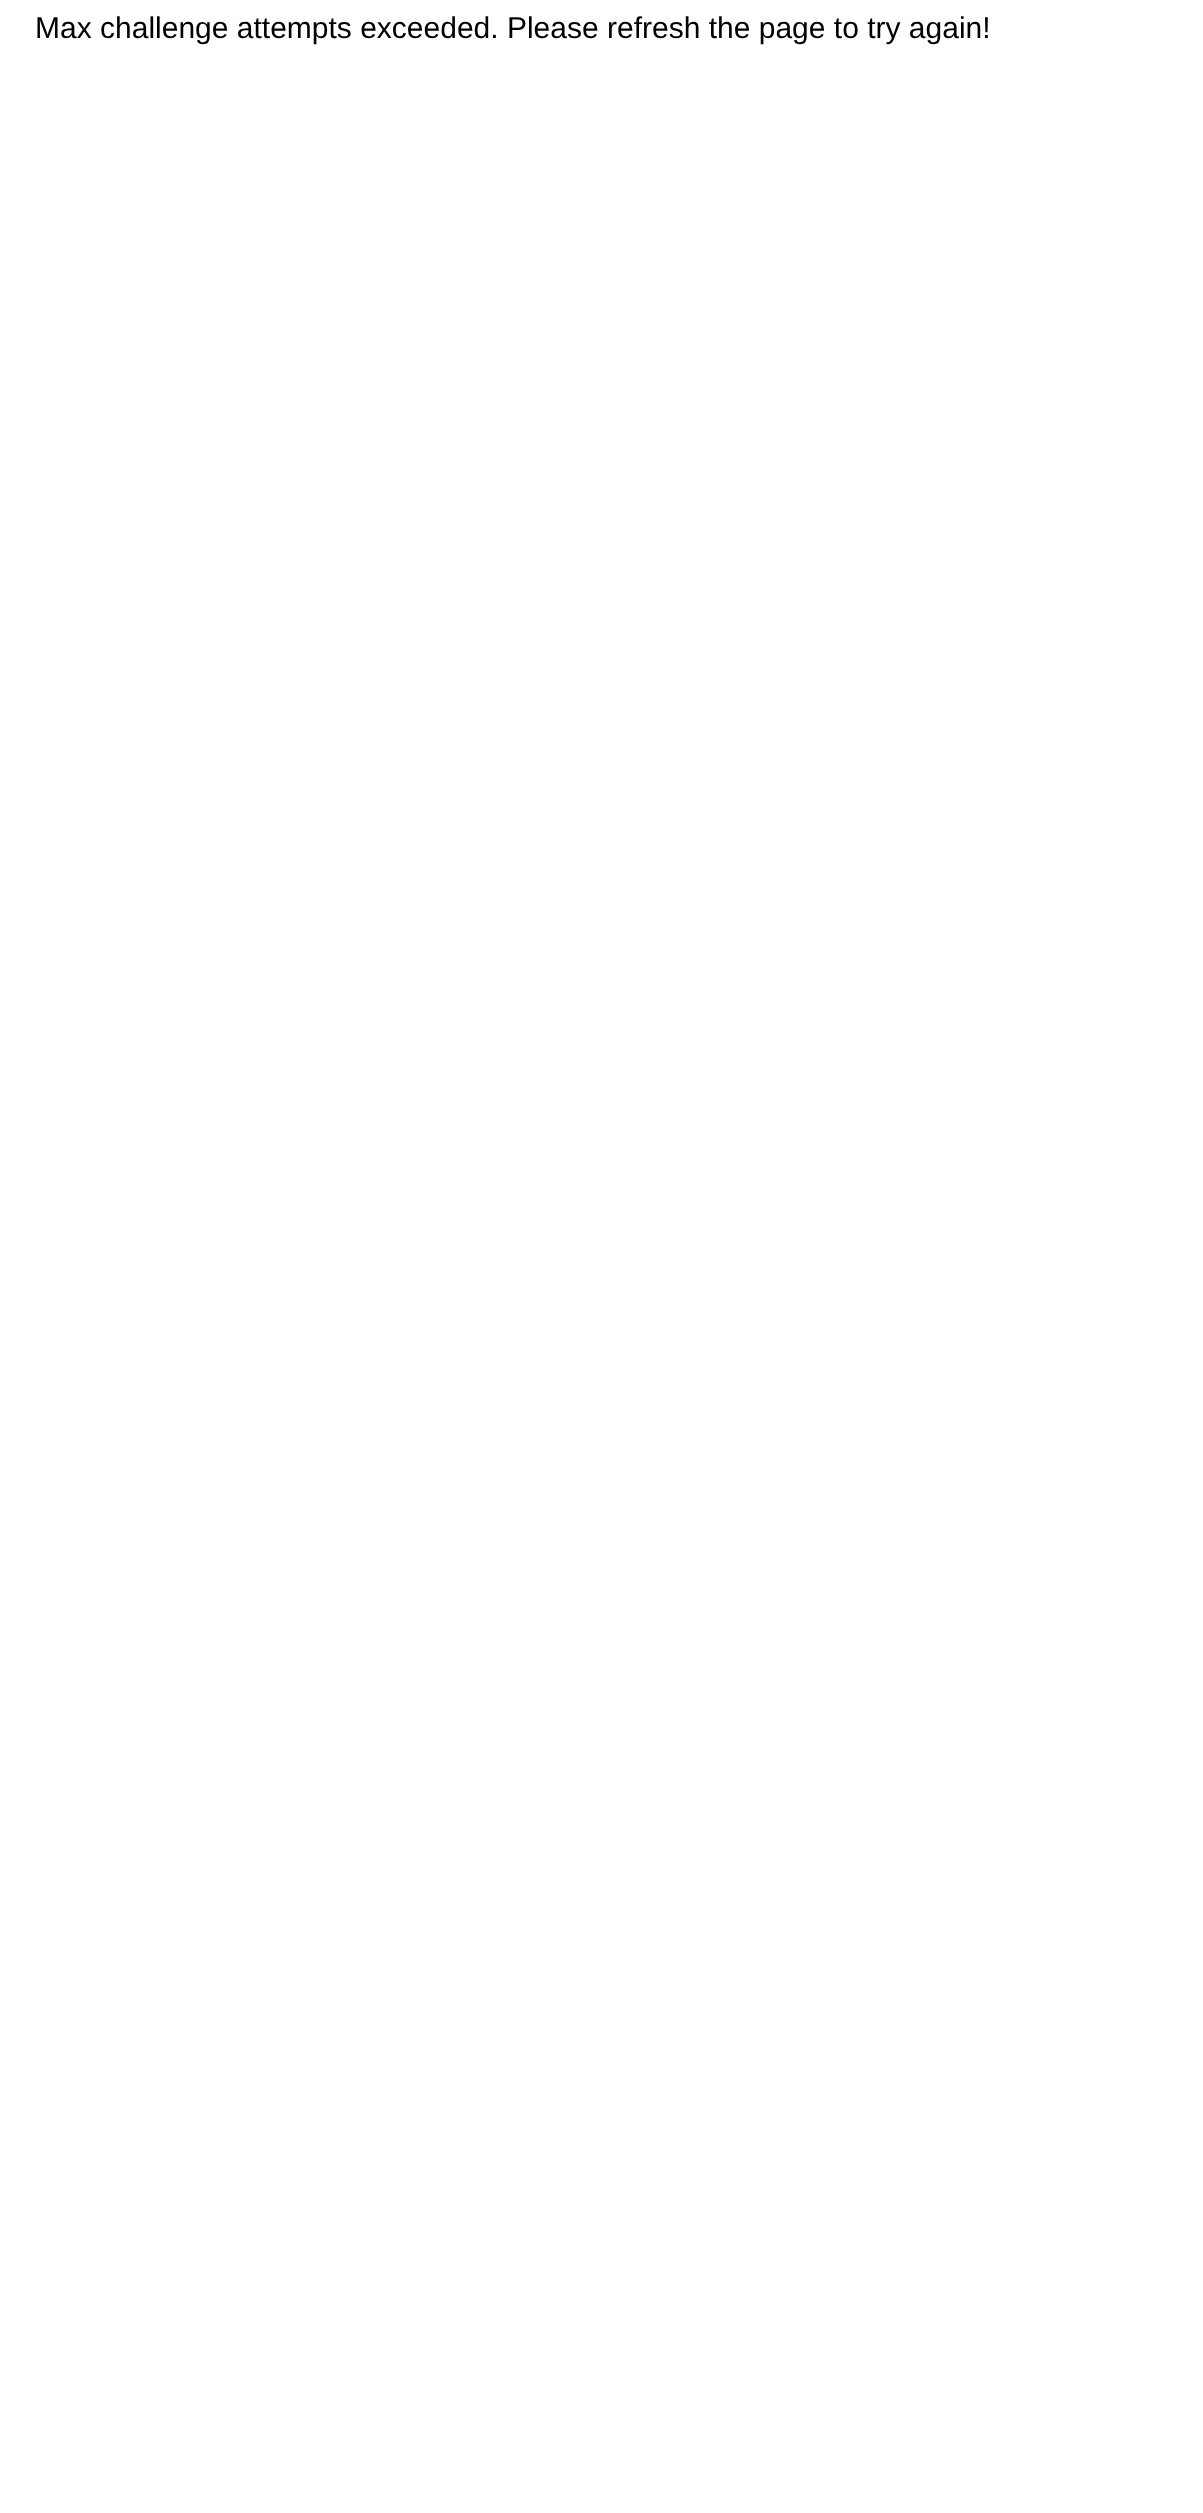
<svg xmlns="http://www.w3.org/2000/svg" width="1203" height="2513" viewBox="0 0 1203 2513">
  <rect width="100%" height="100%" fill="#ffffff"/>
  <text x="35" y="38" font-family="Liberation Sans" font-size="30" fill="#000000">Max challenge attempts exceeded. Please refresh the page to try again!</text>
</svg>
